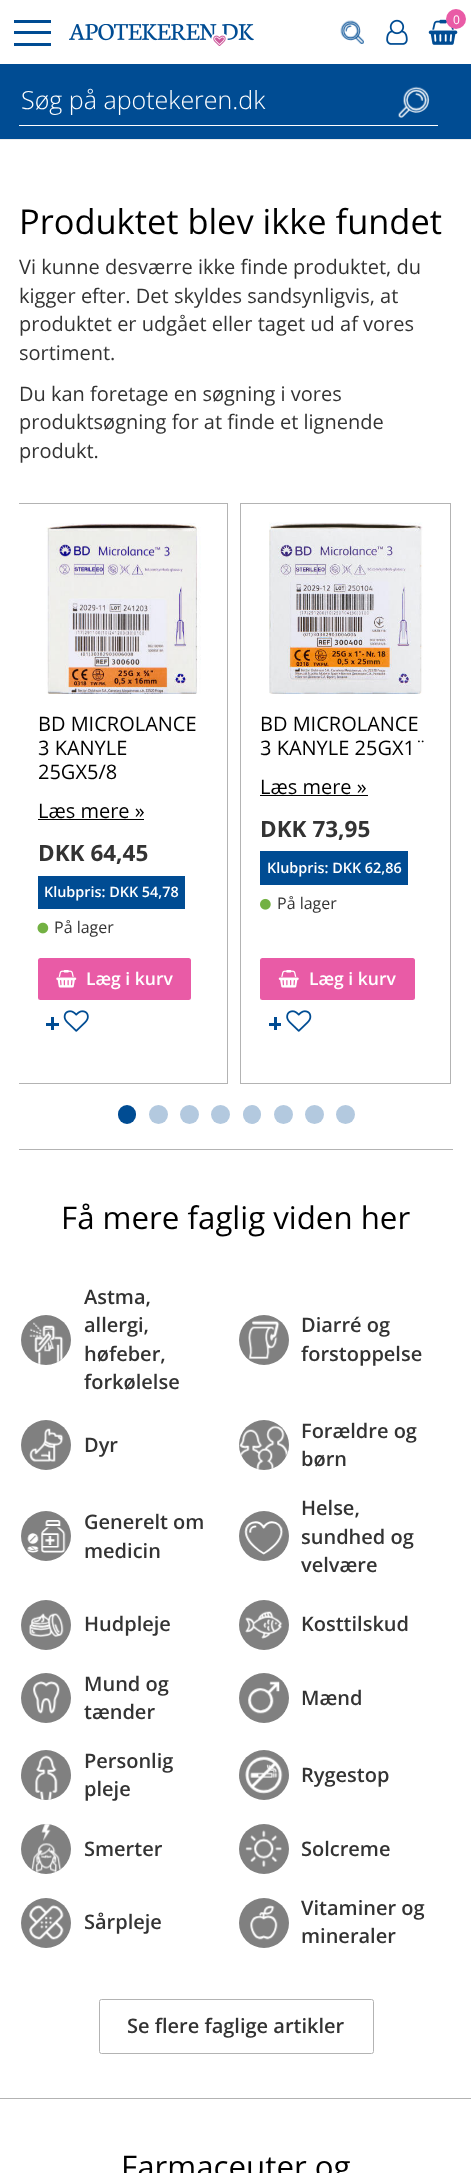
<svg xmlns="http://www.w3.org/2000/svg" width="471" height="2173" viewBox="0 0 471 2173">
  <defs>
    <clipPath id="clip1"><rect x="19" y="503" width="434" height="600"/></clipPath>
  </defs>
  <rect width="100%" height="100%" fill="#ffffff"/>
  <rect x="0" y="139" width="471" height="1" fill="#ededed"/>
  <rect x="14" y="20" width="37" height="3" fill="#004c93"/>
  <rect x="14" y="31" width="37" height="3" fill="#004c93"/>
  <rect x="14" y="43" width="37" height="3" fill="#004c93"/>
  <image x="69" y="24" width="185" height="22" href="img1.png"/>
  <image x="340" y="20" width="24" height="24" href="img2.png"/>
  <image x="386" y="19" width="22" height="26" href="img3.png"/>
  <image x="428" y="19" width="30" height="26" href="img4.png"/>
  <circle cx="456" cy="19" r="10" fill="#e95ba6"/>
  <text x="453" y="24" font-family="Open Sans" font-size="12" fill="#ffffff">0</text>
  <rect x="0" y="64" width="471" height="75" fill="#004c93"/>
  <rect x="19" y="125" width="419" height="1" fill="#ffffff"/>
  <text x="21" y="109" font-family="Open Sans" font-size="25" font-weight="300" fill="#ffffff">Søg på apotekeren.dk</text>
  <image x="398" y="86" width="32" height="32" href="img5.png"/>
  <text x="19" y="234" font-family="Open Sans" font-size="34.4" fill="#000000">Produktet blev ikke fundet</text>
  <text x="19" y="274" font-family="Open Sans" font-size="20" fill="#333333">Vi kunne desværre ikke finde produktet, du</text>
  <text x="19" y="303" font-family="Open Sans" font-size="20" fill="#333333">kigger efter. Det skyldes sandsynligvis, at</text>
  <text x="19" y="331" font-family="Open Sans" font-size="20" fill="#333333">produktet er udgået eller taget ud af vores</text>
  <text x="19" y="360" font-family="Open Sans" font-size="20" fill="#333333">sortiment.</text>
  <text x="19" y="401" font-family="Open Sans" font-size="20" fill="#333333">Du kan foretage en søgning i vores</text>
  <text x="19" y="429" font-family="Open Sans" font-size="20" fill="#333333">produktsøgning for at finde et lignende</text>
  <text x="19" y="458" font-family="Open Sans" font-size="20" fill="#333333">produkt.</text>
  <g clip-path="url(#clip1)">
    <rect x="18.5" y="503.5" width="209" height="580" fill="none" stroke="#b3b3b3"/>
  </g>
  <image x="46" y="523" width="155" height="171" href="img6.png"/>
  <text x="38" y="731" font-family="Open Sans" font-size="20" fill="#000000">BD MICROLANCE</text>
  <text x="38" y="755" font-family="Open Sans" font-size="20" fill="#000000">3 KANYLE</text>
  <text x="38" y="779" font-family="Open Sans" font-size="20" fill="#000000">25GX5/8</text>
  <text x="38" y="818" font-family="Open Sans" font-size="20" fill="#000000">Læs mere »</text>
  <rect x="38" y="819" width="106" height="1" fill="#000000"/>
  <text x="38" y="861" font-family="Open Sans" font-size="22.5" font-weight="bold" fill="#333333">DKK 64,45</text>
  <rect x="38" y="876" width="147" height="33" fill="#004c93"/>
  <text x="44" y="897" font-family="Open Sans" font-size="14.4" font-weight="600" fill="#ffffff">Klubpris: DKK 54,78</text>
  <image x="37" y="922" width="12" height="12" href="img7.png"/>
  <text x="54" y="933" font-family="Open Sans" font-size="16" fill="#333333">På lager</text>
  <rect x="38" y="958" width="153" height="42" rx="2.5" fill="#e95ba6"/>
  <image x="56" y="970" width="21" height="18" href="img8.png"/>
  <text x="86" y="985" font-family="Open Sans" font-size="17.5" font-weight="600" fill="#ffffff">Læg i kurv</text>
  <rect x="51" y="1017" width="3" height="13" fill="#004c93"/>
  <rect x="46" y="1023" width="13" height="3" fill="#004c93"/>
  <image x="63" y="1010" width="26" height="22" href="img9.png"/>
  <rect x="240.5" y="503.5" width="210" height="580" fill="none" stroke="#b3b3b3"/>
  <image x="269" y="522" width="154" height="172" href="img10.png"/>
  <text x="260" y="731" font-family="Open Sans" font-size="20" fill="#000000">BD MICROLANCE</text>
  <text x="260" y="755" font-family="Open Sans" font-size="20" fill="#000000">3 KANYLE 25GX1¨</text>
  <text x="260" y="794" font-family="Open Sans" font-size="20" fill="#000000">Læs mere »</text>
  <rect x="260" y="795" width="108" height="1" fill="#000000"/>
  <text x="260" y="837" font-family="Open Sans" font-size="22.5" font-weight="bold" fill="#333333">DKK 73,95</text>
  <rect x="260" y="851" width="148" height="34" fill="#004c93"/>
  <text x="267" y="873" font-family="Open Sans" font-size="14.4" font-weight="600" fill="#ffffff">Klubpris: DKK 62,86</text>
  <image x="260" y="898" width="11" height="12" href="img11.png"/>
  <text x="277" y="909" font-family="Open Sans" font-size="16" fill="#333333">På lager</text>
  <rect x="260" y="958" width="155" height="42" rx="2.5" fill="#e95ba6"/>
  <image x="278" y="970" width="21" height="18" href="img12.png"/>
  <text x="309" y="985" font-family="Open Sans" font-size="17.5" font-weight="600" fill="#ffffff">Læg i kurv</text>
  <rect x="274" y="1017" width="3" height="13" fill="#004c93"/>
  <rect x="269" y="1023" width="12" height="3" fill="#004c93"/>
  <image x="286" y="1010" width="26" height="22" href="img13.png"/>
  <rect x="118" y="1105" width="18" height="19" rx="9" fill="#004c93"/>
  <circle cx="158.5" cy="1114.5" r="9.5" fill="#b3c9df"/>
  <circle cx="189.5" cy="1114.5" r="9.5" fill="#b3c9df"/>
  <circle cx="220.5" cy="1114.5" r="9.5" fill="#b3c9df"/>
  <rect x="243" y="1105" width="18" height="19" rx="9" fill="#b3c9df"/>
  <circle cx="283.5" cy="1114.5" r="9.5" fill="#b3c9df"/>
  <circle cx="314.5" cy="1114.5" r="9.5" fill="#b3c9df"/>
  <circle cx="345.5" cy="1114.5" r="9.5" fill="#b3c9df"/>
  <rect x="19" y="1149" width="434" height="1" fill="#b3b3b3"/>
  <text x="61" y="1229" font-family="Open Sans" font-size="31.25" fill="#000000">Få mere faglig viden her</text>
  <circle cx="46" cy="1340" r="25" fill="#808080"/>
  <image x="29" y="1322" width="35" height="43" href="img14.png"/>
  <text x="84" y="1304" font-family="Open Sans" font-size="20" font-weight="600" fill="#333333">Astma,</text>
  <text x="84" y="1332" font-family="Open Sans" font-size="20" font-weight="600" fill="#333333">allergi,</text>
  <text x="84" y="1361" font-family="Open Sans" font-size="20" font-weight="600" fill="#333333">høfeber,</text>
  <text x="84" y="1389" font-family="Open Sans" font-size="20" font-weight="600" fill="#333333">forkølelse</text>
  <circle cx="264" cy="1340" r="25" fill="#808080"/>
  <image x="248" y="1320" width="32" height="39" href="img15.png"/>
  <text x="301" y="1332" font-family="Open Sans" font-size="20" font-weight="600" fill="#333333">Diarré og</text>
  <text x="301" y="1361" font-family="Open Sans" font-size="20" font-weight="600" fill="#333333">forstoppelse</text>
  <circle cx="46" cy="1445" r="25" fill="#808080"/>
  <image x="29" y="1428" width="35" height="34" href="img16.png"/>
  <text x="84" y="1452" font-family="Open Sans" font-size="20" font-weight="600" fill="#333333">Dyr</text>
  <circle cx="264" cy="1445" r="25" fill="#808080"/>
  <image x="239" y="1425" width="49" height="45" href="img17.png"/>
  <text x="301" y="1438" font-family="Open Sans" font-size="20" font-weight="600" fill="#333333">Forældre og</text>
  <text x="301" y="1466" font-family="Open Sans" font-size="20" font-weight="600" fill="#333333">børn</text>
  <circle cx="46" cy="1536" r="25" fill="#808080"/>
  <image x="27" y="1520" width="39" height="33" href="img18.png"/>
  <text x="84" y="1529" font-family="Open Sans" font-size="20" font-weight="600" fill="#333333">Generelt om</text>
  <text x="84" y="1558" font-family="Open Sans" font-size="20" font-weight="600" fill="#333333">medicin</text>
  <circle cx="264" cy="1536" r="25" fill="#808080"/>
  <image x="244" y="1521" width="40" height="34" href="img19.png"/>
  <text x="301" y="1515" font-family="Open Sans" font-size="20" font-weight="600" fill="#333333">Helse,</text>
  <text x="301" y="1544" font-family="Open Sans" font-size="20" font-weight="600" fill="#333333">sundhed og</text>
  <text x="301" y="1572" font-family="Open Sans" font-size="20" font-weight="600" fill="#333333">velvære</text>
  <circle cx="46" cy="1625" r="25" fill="#808080"/>
  <image x="29" y="1613" width="35" height="24" href="img20.png"/>
  <text x="84" y="1631" font-family="Open Sans" font-size="20" font-weight="600" fill="#333333">Hudpleje</text>
  <circle cx="264" cy="1625" r="25" fill="#808080"/>
  <image x="245" y="1611" width="38" height="28" href="img21.png"/>
  <text x="301" y="1631" font-family="Open Sans" font-size="20" font-weight="600" fill="#333333">Kosttilskud</text>
  <circle cx="46" cy="1698" r="25" fill="#808080"/>
  <image x="33" y="1681" width="27" height="33" href="img22.png"/>
  <text x="84" y="1691" font-family="Open Sans" font-size="20" font-weight="600" fill="#333333">Mund og</text>
  <text x="84" y="1719" font-family="Open Sans" font-size="20" font-weight="600" fill="#333333">tænder</text>
  <circle cx="264" cy="1698" r="25" fill="#808080"/>
  <image x="248" y="1681" width="32" height="33" href="img23.png"/>
  <text x="301" y="1705" font-family="Open Sans" font-size="20" font-weight="600" fill="#333333">Mænd</text>
  <circle cx="46" cy="1775" r="25" fill="#808080"/>
  <image x="35" y="1755" width="23" height="45" href="img24.png"/>
  <text x="84" y="1768" font-family="Open Sans" font-size="20" font-weight="600" fill="#333333">Personlig</text>
  <text x="84" y="1796" font-family="Open Sans" font-size="20" font-weight="600" fill="#333333">pleje</text>
  <circle cx="264" cy="1775" r="25" fill="#808080"/>
  <image x="245" y="1756" width="38" height="38" href="img25.png"/>
  <text x="301" y="1782" font-family="Open Sans" font-size="20" font-weight="600" fill="#333333">Rygestop</text>
  <circle cx="46" cy="1849" r="25" fill="#808080"/>
  <image x="31" y="1824" width="31" height="49" href="img26.png"/>
  <text x="84" y="1856" font-family="Open Sans" font-size="20" font-weight="600" fill="#333333">Smerter</text>
  <circle cx="264" cy="1849" r="25" fill="#808080"/>
  <image x="245" y="1830" width="37" height="37" href="img27.png"/>
  <text x="301" y="1856" font-family="Open Sans" font-size="20" font-weight="600" fill="#333333">Solcreme</text>
  <circle cx="46" cy="1923" r="25" fill="#808080"/>
  <image x="29" y="1905" width="35" height="35" href="img28.png"/>
  <text x="84" y="1929" font-family="Open Sans" font-size="20" font-weight="600" fill="#333333">Sårpleje</text>
  <circle cx="264" cy="1923" r="25" fill="#808080"/>
  <image x="250" y="1905" width="28" height="35" href="img29.png"/>
  <text x="301" y="1915" font-family="Open Sans" font-size="20" font-weight="600" fill="#333333">Vitaminer og</text>
  <text x="301" y="1943" font-family="Open Sans" font-size="20" font-weight="600" fill="#333333">mineraler</text>
  <rect x="99.5" y="1999.5" width="274" height="54" rx="2" fill="none" stroke="#b3b3b3"/>
  <text x="127" y="2033" font-family="Open Sans" font-size="20" font-weight="600" fill="#333333">Se flere faglige artikler</text>
  <rect x="0" y="2098" width="471" height="1" fill="#b3b3b3"/>
  <text x="121" y="2178" font-family="Open Sans" font-size="31.25" fill="#000000">Farmaceuter og</text>
</svg>
